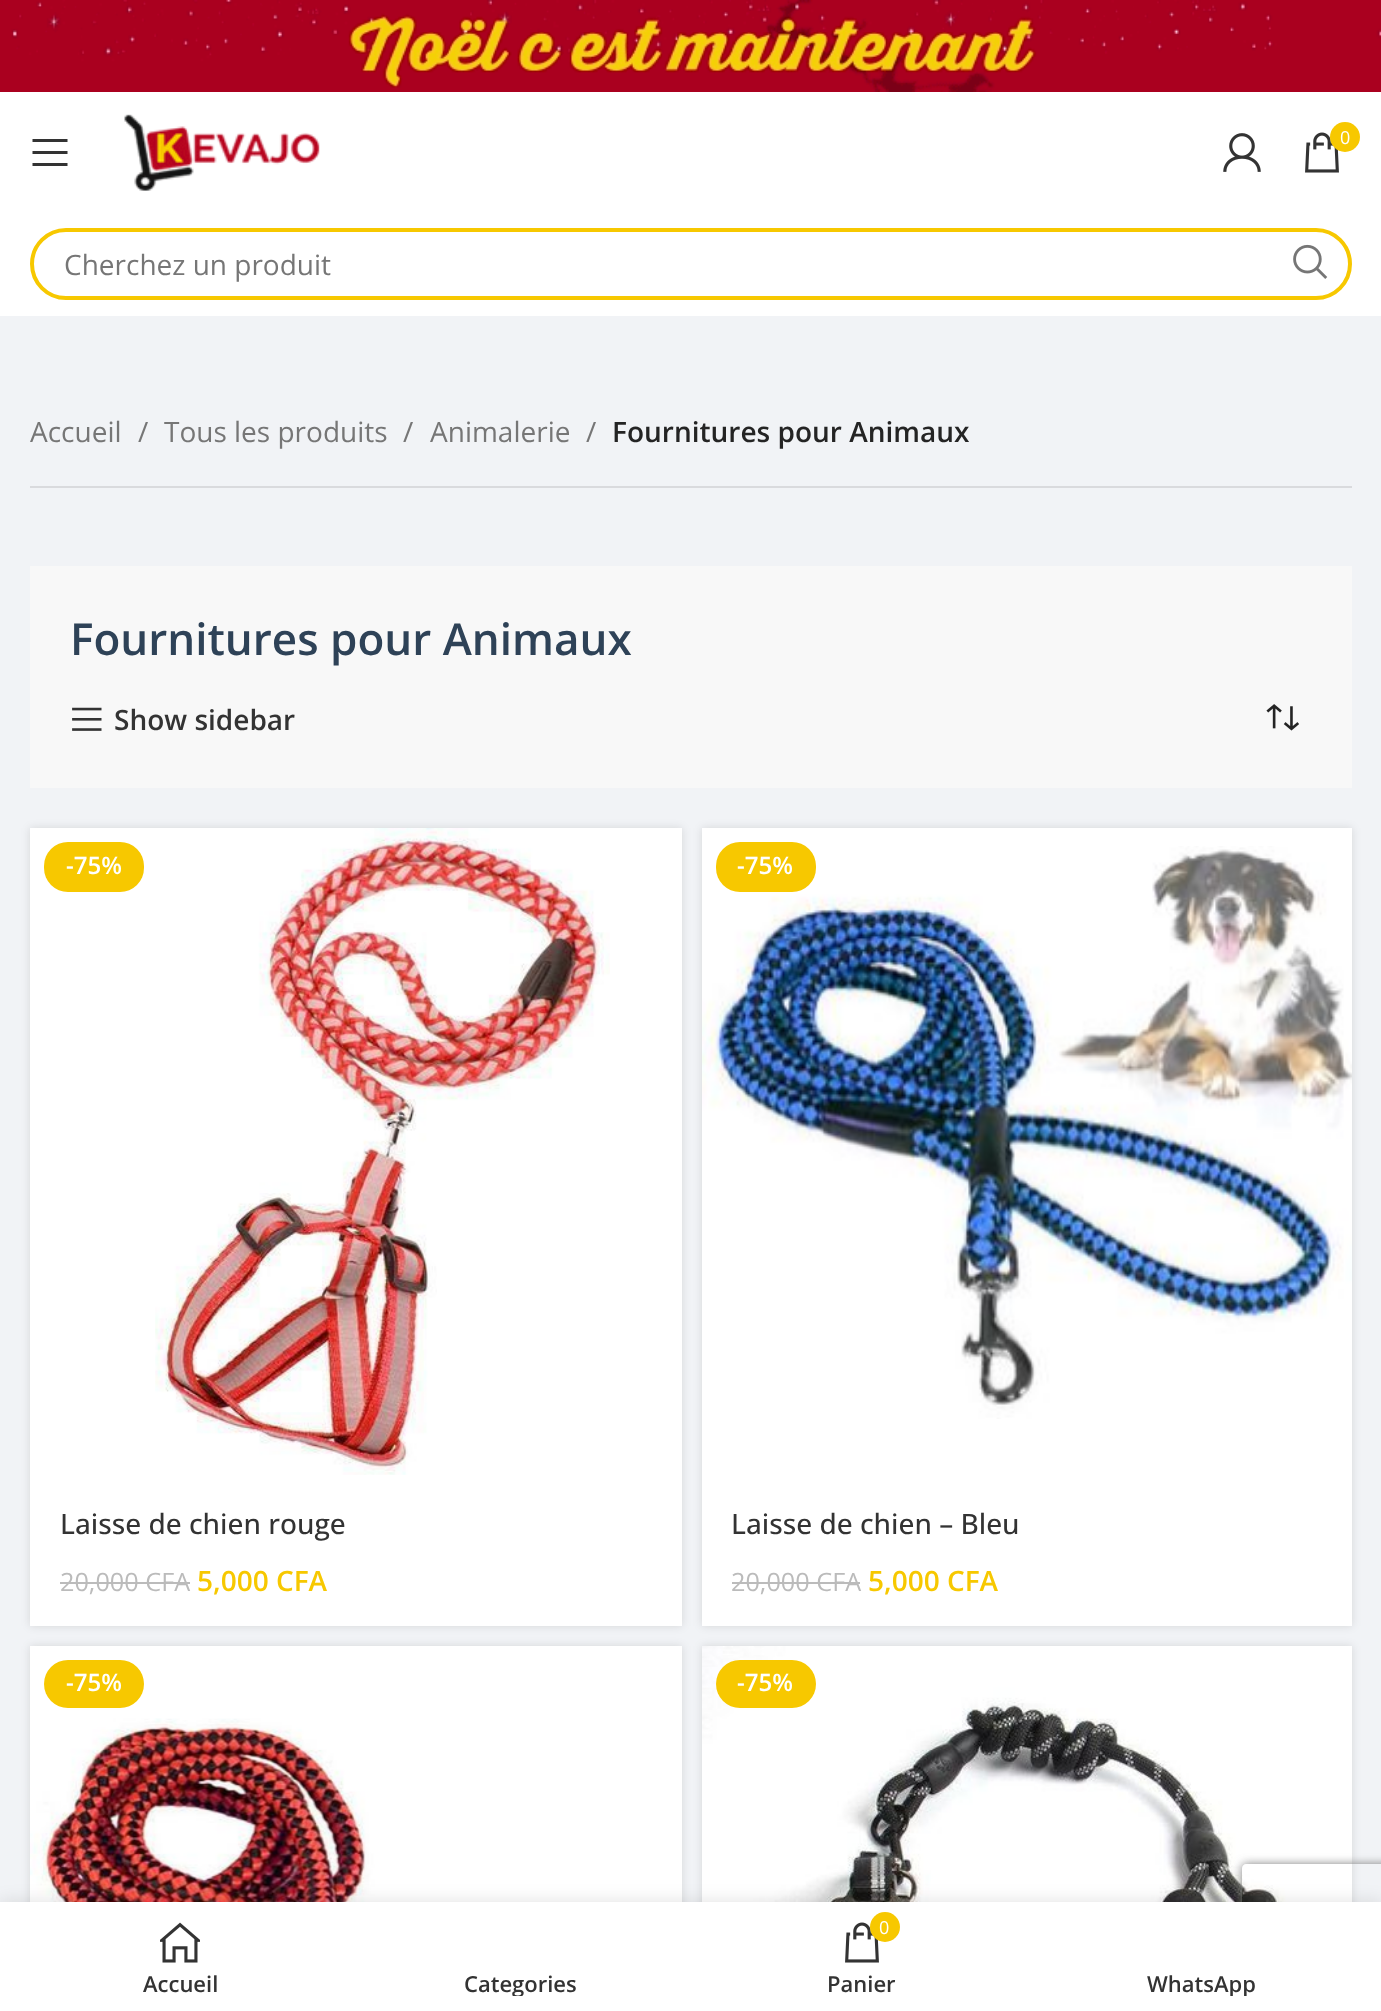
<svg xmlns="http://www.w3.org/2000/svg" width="1381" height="2011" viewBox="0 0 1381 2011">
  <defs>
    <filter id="blur1" x="-50%" y="-200%" width="200%" height="500%"><feGaussianBlur stdDeviation="4"/></filter>
    <filter id="blur2" x="-50%" y="-200%" width="200%" height="500%"><feGaussianBlur stdDeviation="9"/></filter>
    <clipPath id="clip1"><path d="M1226 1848H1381V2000H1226ZM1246 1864H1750C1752 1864 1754 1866 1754 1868V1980C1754 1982 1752 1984 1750 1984H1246C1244 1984 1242 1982 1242 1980V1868C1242 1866 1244 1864 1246 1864Z" clip-rule="evenodd"/></clipPath>
    <filter id="blur3" x="-50%" y="-200%" width="200%" height="500%"><feGaussianBlur stdDeviation="5"/></filter>
    <clipPath id="clip2"><rect x="370" y="1970" width="302" height="26"/></clipPath>
    <clipPath id="clip3"><rect x="1052" y="1970" width="300" height="26"/></clipPath>
  </defs>
  <rect width="100%" height="100%" fill="#ffffff"/>
  <image x="0" y="0" width="1381" height="92" href="img1.png"/>
  <path d="M32.5 142H67.5V139H32.5ZM32.5 154H67.5V151H32.5ZM32.5 166H67.5V163H32.5Z" fill="#333333"/>
  <image x="124" y="114" width="196" height="77" href="img2.png"/>
  <image x="1223" y="133" width="38" height="39" href="img3.png"/>
  <image x="1305" y="132" width="34" height="41" href="img4.png"/>
  <circle cx="1345" cy="137" r="15" fill="#f7c800"/>
  <text x="1340" y="144" font-family="Open Sans" font-size="18" fill="#ffffff">0</text>
  <rect x="32" y="230" width="1318" height="68" rx="34" fill="none" stroke="#f7c800" stroke-width="4"/>
  <text x="64" y="275" font-family="Open Sans" font-size="28" fill="#767676">Cherchez un produit</text>
  <image x="1293" y="244" width="35" height="35" href="img5.png"/>
  <rect x="0" y="316" width="1381" height="1586" fill="#f1f3f6"/>
  <text x="30" y="442" font-family="Open Sans" font-size="28" fill="#767676">Accueil</text>
  <text x="138" y="442" font-family="Open Sans" font-size="28" fill="#767676">/</text>
  <text x="164" y="442" font-family="Open Sans" font-size="28" fill="#767676">Tous les produits</text>
  <text x="403" y="442" font-family="Open Sans" font-size="28" fill="#767676">/</text>
  <text x="430" y="442" font-family="Open Sans" font-size="28" fill="#767676">Animalerie</text>
  <text x="586" y="442" font-family="Open Sans" font-size="28" fill="#767676">/</text>
  <text x="612" y="442" font-family="Open Sans" font-size="28" font-weight="600" fill="#242424">Fournitures pour Animaux</text>
  <rect x="30" y="486" width="1322" height="2" fill="#d9dadd"/>
  <rect x="30" y="566" width="1322" height="222" fill="#f8f8f8"/>
  <text x="70" y="655" font-family="Open Sans" font-size="44" font-weight="600" fill="#2e4257">Fournitures pour Animaux</text>
  <image x="72" y="707" width="30" height="24" href="img6.png"/>
  <text x="114" y="730" font-family="Open Sans" font-size="28" font-weight="600" fill="#333333">Show sidebar</text>
  <image x="1266" y="704" width="33" height="27" href="img7.png"/>
  <rect x="30" y="828" width="652" height="798" fill="#000000" fill-opacity="0.12" filter="url(#blur1)"/>
  <rect x="30" y="828" width="652" height="798" fill="#ffffff"/>
  <rect x="44" y="842" width="100" height="50" rx="24" fill="#f7c800"/>
  <text x="66" y="874" font-family="Open Sans" font-size="24" font-weight="600" fill="#ffffff">-75%</text>
  <image x="155" y="828" width="455" height="647" href="img8.png"/>
  <text x="60" y="1534" font-family="Open Sans" font-size="28" font-weight="500" fill="#333333">Laisse de chien rouge</text>
  <text x="60" y="1591" font-family="Open Sans" font-size="25.25" fill="#bbbbbb">20,000 CFA</text>
  <rect x="60" y="1582" width="130" height="2" fill="#bbbbbb"/>
  <text x="197" y="1591" font-family="Open Sans" font-size="28" font-weight="600" fill="#f7c800">5,000 CFA</text>
  <rect x="702" y="828" width="650" height="798" fill="#000000" fill-opacity="0.12" filter="url(#blur1)"/>
  <rect x="702" y="828" width="650" height="798" fill="#ffffff"/>
  <image x="702" y="846" width="650" height="573" href="img9.png"/>
  <rect x="716" y="842" width="100" height="50" rx="24" fill="#f7c800"/>
  <text x="737" y="874" font-family="Open Sans" font-size="24" font-weight="600" fill="#ffffff">-75%</text>
  <text x="731" y="1534" font-family="Open Sans" font-size="28" font-weight="500" fill="#333333">Laisse de chien – Bleu</text>
  <text x="731" y="1591" font-family="Open Sans" font-size="25.25" fill="#bbbbbb">20,000 CFA</text>
  <rect x="732" y="1582" width="128" height="2" fill="#bbbbbb"/>
  <text x="868" y="1591" font-family="Open Sans" font-size="28" font-weight="600" fill="#f7c800">5,000 CFA</text>
  <rect x="30" y="1646" width="652" height="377" fill="#000000" fill-opacity="0.12" filter="url(#blur1)"/>
  <rect x="30" y="1646" width="652" height="256" fill="#ffffff"/>
  <rect x="44" y="1660" width="100" height="48" rx="24" fill="#f7c800"/>
  <text x="66" y="1691" font-family="Open Sans" font-size="24" font-weight="600" fill="#ffffff">-75%</text>
  <image x="30" y="1718" width="606" height="184" href="img10.png"/>
  <rect x="702" y="1646" width="650" height="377" fill="#000000" fill-opacity="0.12" filter="url(#blur1)"/>
  <rect x="1329" y="1646" width="23" height="256" fill="#ffffff"/>
  <image x="702" y="1646" width="627" height="256" href="img11.png"/>
  <rect x="716" y="1660" width="100" height="48" rx="24" fill="#f7c800"/>
  <text x="737" y="1691" font-family="Open Sans" font-size="24" font-weight="600" fill="#ffffff">-75%</text>
  <rect x="0" y="1902" width="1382" height="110" fill="#000000" fill-opacity="0.12" filter="url(#blur2)"/>
  <g clip-path="url(#clip1)">
    <rect x="1242" y="1864" width="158" height="120" rx="4" fill="#808080" filter="url(#blur3)"/>
  </g>
  <rect x="0" y="1902" width="1381" height="109" fill="#ffffff"/>
  <image x="160" y="1922" width="40" height="41" href="img12.png"/>
  <text x="143" y="1992" font-family="Open Sans" font-size="22" font-weight="600" fill="#333333">Accueil</text>
  <g clip-path="url(#clip2)">
    <text x="464" y="1992" font-family="Open Sans" font-size="22" font-weight="600" fill="#333333">Categories</text>
  </g>
  <image x="845" y="1922" width="34" height="41" href="img4.png"/>
  <circle cx="885" cy="1927" r="15" fill="#f7c800"/>
  <text x="879" y="1934" font-family="Open Sans" font-size="18" fill="#ffffff">0</text>
  <text x="827" y="1992" font-family="Open Sans" font-size="22" font-weight="600" fill="#333333">Panier</text>
  <g clip-path="url(#clip3)">
    <text x="1147" y="1992" font-family="Open Sans" font-size="22" font-weight="600" fill="#333333">WhatsApp</text>
  </g>
</svg>
